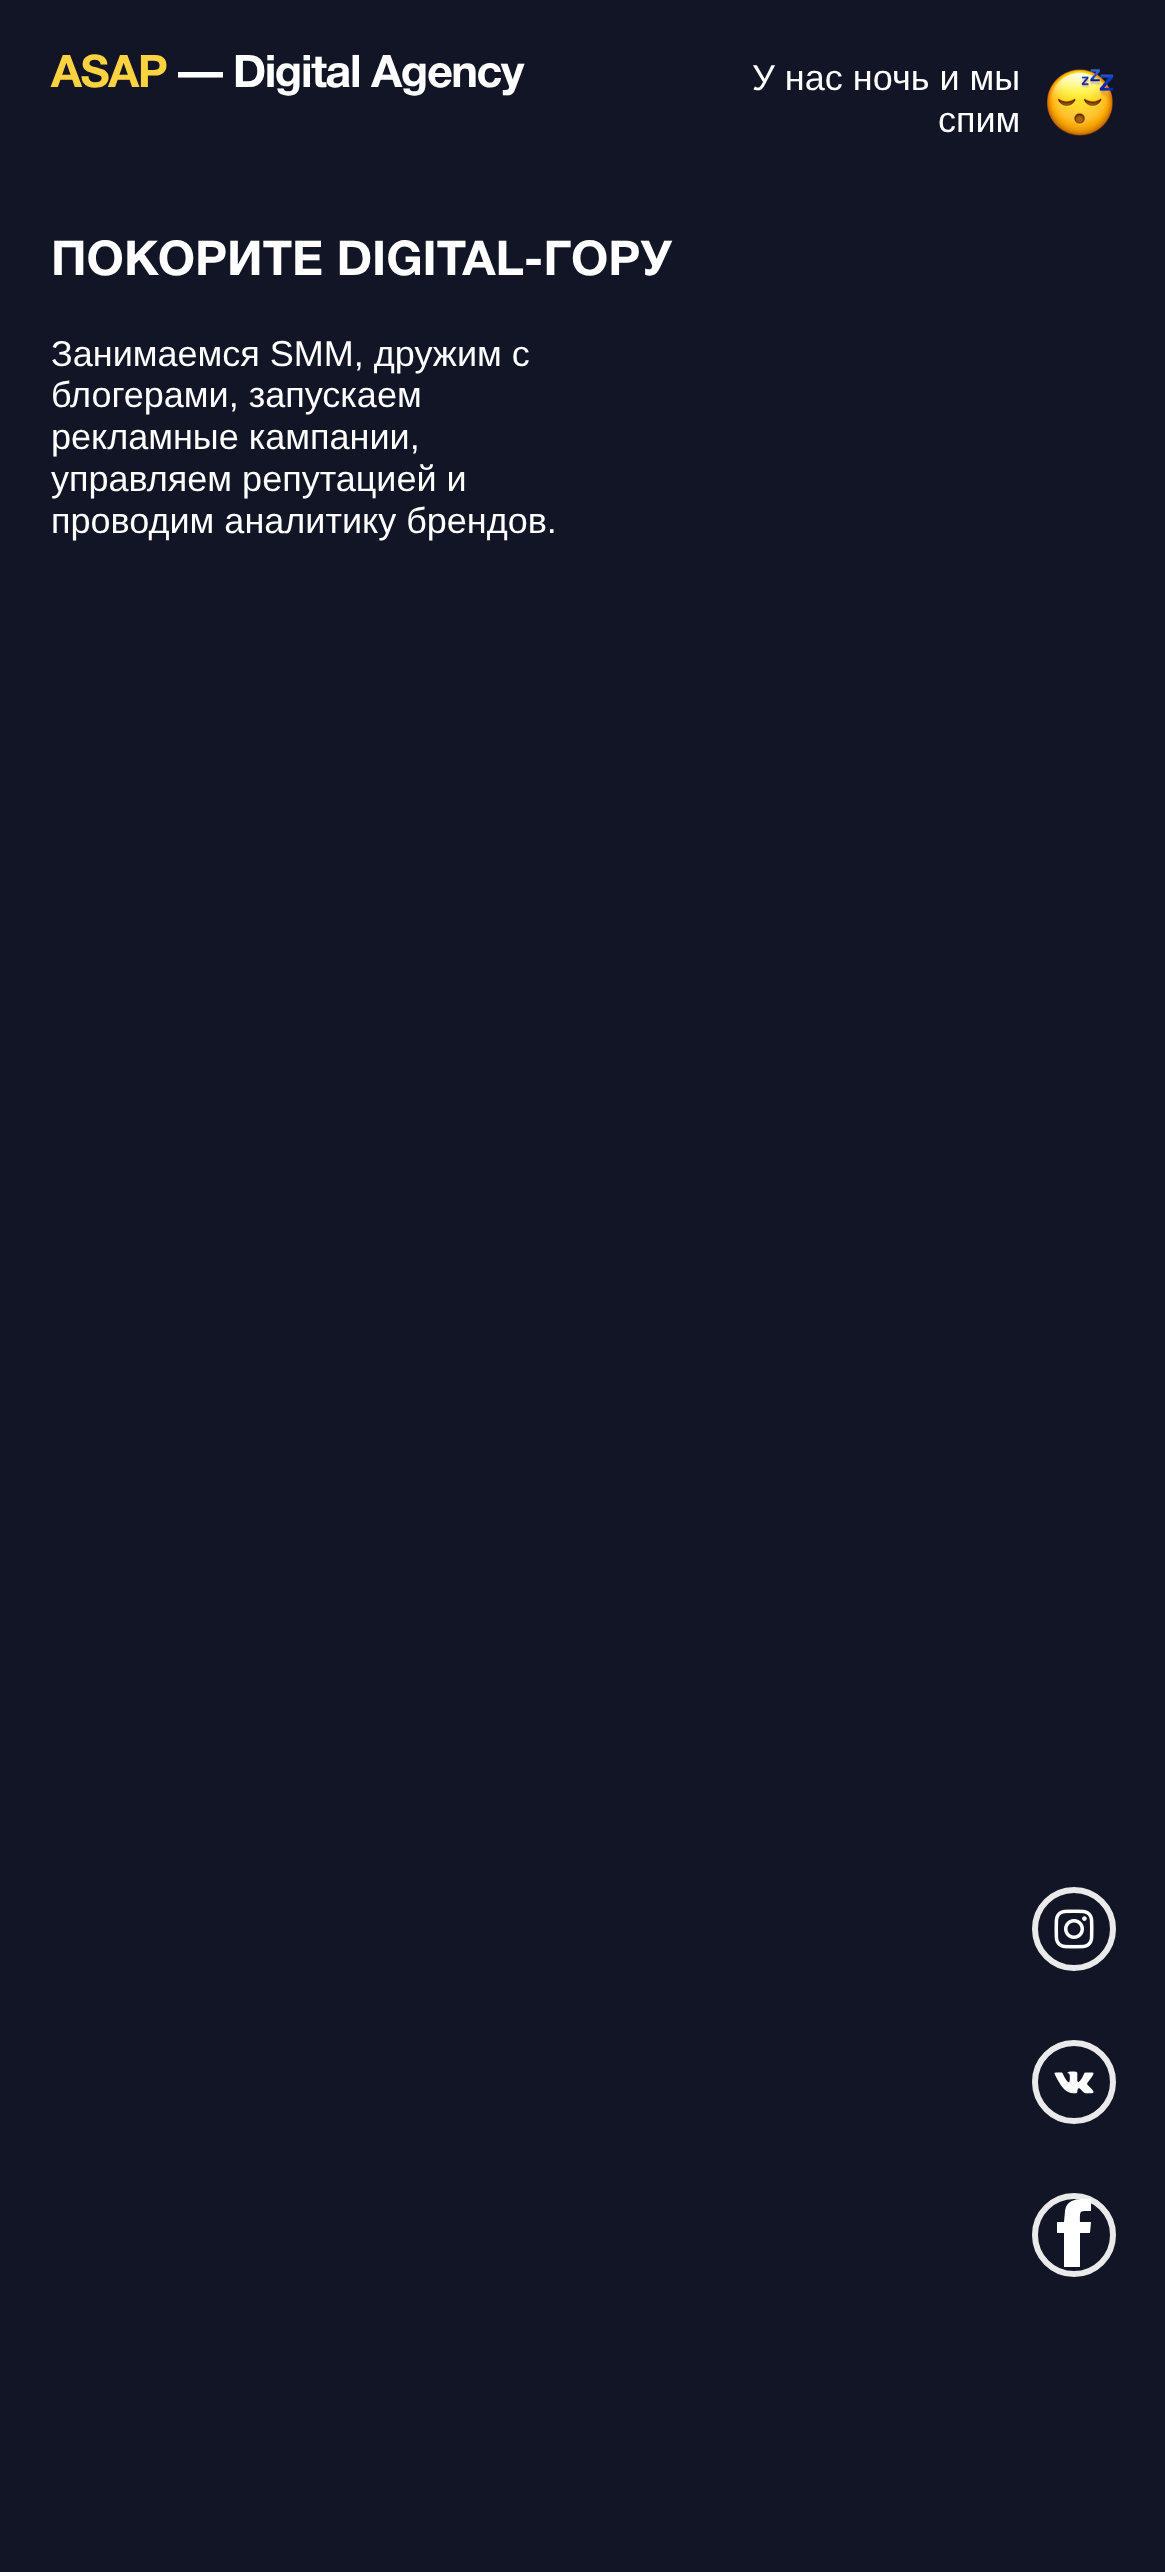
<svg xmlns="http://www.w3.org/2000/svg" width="1165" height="2572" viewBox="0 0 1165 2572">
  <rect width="100%" height="100%" fill="#121525"/>
  <text x="51" y="87" font-family="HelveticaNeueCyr" font-size="45" font-weight="bold" letter-spacing="-1.4" fill="#ffd23f">ASAP</text>
  <text x="178" y="87" font-family="HelveticaNeueCyr" font-size="45" font-weight="bold" letter-spacing="-1.4" fill="#ffffff">— Digital Agency</text>
  <text x="752" y="90" font-family="Liberation Sans" font-size="36" fill="#ffffff">У нас ночь и мы</text>
  <text x="938" y="132" font-family="Liberation Sans" font-size="36" fill="#ffffff">спим</text>
  <image x="1044" y="66" width="72" height="72" href="img1.png"/>
  <text x="51" y="275" font-family="HelveticaNeueCyr" font-size="48" font-weight="bold" fill="#ffffff">ПОКОРИТЕ DIGITAL-ГОРУ</text>
  <text x="51" y="366" font-family="Liberation Sans" font-size="36" fill="#ffffff">Занимаемся SMM, дружим с</text>
  <text x="51" y="407" font-family="Liberation Sans" font-size="36" fill="#ffffff">блогерами, запускаем</text>
  <text x="51" y="449" font-family="Liberation Sans" font-size="36" fill="#ffffff">рекламные кампании,</text>
  <text x="51" y="491" font-family="Liberation Sans" font-size="36" fill="#ffffff">управляем репутацией и</text>
  <text x="51" y="533" font-family="Liberation Sans" font-size="36" fill="#ffffff">проводим аналитику брендов.</text>
  <circle cx="1074" cy="1929" r="39" fill="none" stroke="#eaeaea" stroke-width="6"/>
  <image x="1054" y="1909" width="40" height="40" href="img2.png"/>
  <circle cx="1074" cy="2082" r="39" fill="none" stroke="#eaeaea" stroke-width="6"/>
  <image x="1054" y="2071" width="40" height="23" href="img3.png"/>
  <circle cx="1074" cy="2235" r="39" fill="none" stroke="#eaeaea" stroke-width="6"/>
  <path d="M1080 2267V2233H1090L1091 2222H1080C1080 2210 1079 2211 1091 2211V2199C1081 2199 1067 2197 1065 2211L1064 2222H1057V2233H1064V2267Z" fill="#ffffff" fill-rule="evenodd"/>
</svg>
